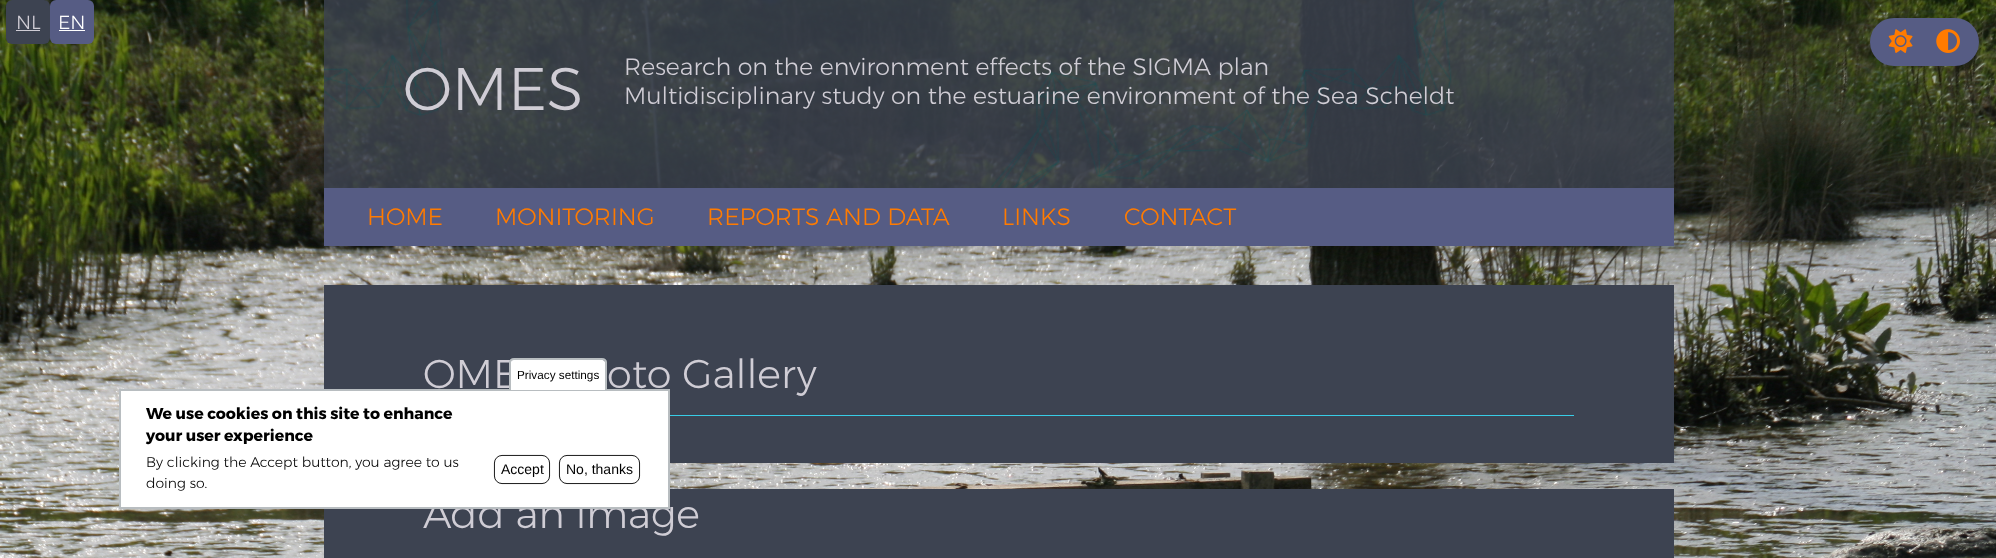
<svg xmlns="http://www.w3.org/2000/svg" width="1996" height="558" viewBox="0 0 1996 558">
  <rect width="100%" height="100%" fill="#ffffff"/>
  <image x="0" y="0" width="1996" height="558" href="img1.png"/>
  <rect x="6" y="0" width="44" height="44" rx="6" fill="#3d4351"/>
  <text x="16" y="29" font-family="Montserrat" font-size="19" font-weight="300" fill="#d0cdd5">NL</text>
  <rect x="16" y="30" width="24" height="1" fill="#d0cdd5"/>
  <rect x="50" y="0" width="44" height="44" rx="6" fill="#565c84"/>
  <text x="58" y="29" font-family="Montserrat" font-size="19" font-weight="300" fill="#ffffff">EN</text>
  <rect x="59" y="30" width="26" height="1" fill="#ffffff"/>
  <rect x="324" y="0" width="1350" height="188" fill="#3d4351" fill-opacity="0.8"/>
  <image x="323" y="0" width="1129" height="188" href="img2.png"/>
  <text x="403" y="110" font-family="Montserrat" font-size="60" font-weight="300" fill="#d0cdd5">OMES</text>
  <text x="624" y="75" font-family="Montserrat" font-size="23.75" font-weight="300" fill="#d0cdd5">Research on the environment effects of the SIGMA plan</text>
  <text x="624" y="104" font-family="Montserrat" font-size="23.75" font-weight="300" fill="#d0cdd5">Multidisciplinary study on the estuarine environment of the Sea Scheldt</text>
  <rect x="324" y="188" width="1350" height="58" fill="#565c84"/>
  <text x="367" y="225" font-family="Montserrat" font-size="23.75" font-weight="300" fill="#ff7b00">HOME</text>
  <text x="495" y="225" font-family="Montserrat" font-size="23.75" font-weight="300" fill="#ff7b00">MONITORING</text>
  <text x="707" y="225" font-family="Montserrat" font-size="23.75" font-weight="300" fill="#ff7b00">REPORTS AND DATA</text>
  <text x="1002" y="225" font-family="Montserrat" font-size="23.75" font-weight="300" fill="#ff7b00">LINKS</text>
  <text x="1124" y="225" font-family="Montserrat" font-size="23.75" font-weight="300" fill="#ff7b00">CONTACT</text>
  <rect x="324" y="285" width="1350" height="178" fill="#3d4351"/>
  <rect x="670" y="415" width="904" height="1" fill="#38cde7"/>
  <text x="423" y="388" font-family="Montserrat" font-size="40" font-weight="300" fill="#d0cdd5">OME</text>
  <text x="607" y="388" font-family="Montserrat" font-size="40" font-weight="300" fill="#d0cdd5">oto Gallery</text>
  <rect x="324" y="489" width="1350" height="69" fill="#3d4351"/>
  <text x="423" y="528" font-family="Montserrat" font-size="40" font-weight="300" fill="#d0cdd5">Add an image</text>
  <rect x="1870" y="18" width="109" height="48" rx="24" fill="#565c84"/>
  <image x="1888" y="29" width="25" height="24" href="img3.png"/>
  <image x="1936" y="29" width="24" height="24" href="img4.png"/>
  <rect x="120" y="390" width="549" height="118" fill="#ffffff" stroke="#b8bdc0" stroke-width="2"/>
  <path d="M513.5 360H602.5C604 360 605 361 605 362.5V390H511V362.5C511 361 512 360 513.5 360Z" fill="#ffffff"/>
  <path d="M514 358H602C605 358 607 360 607 362V390H509V362C509 360 511 358 514 358ZM514 360H602C604 360 605 361 605 362V390H511V362C511 361 512 360 514 360Z" fill="#b8bdc0" fill-rule="evenodd"/>
  <text x="517" y="379" font-family="Liberation Sans" font-size="11.75" fill="#000000">Privacy settings</text>
  <text x="146" y="419" font-family="Montserrat" font-size="15.75" font-weight="bold" fill="#000000">We use cookies on this site to enhance</text>
  <text x="146" y="441" font-family="Montserrat" font-size="15.75" font-weight="bold" fill="#000000">your user experience</text>
  <text x="146" y="467" font-family="Montserrat" font-size="14" font-weight="300" fill="#000000">By clicking the Accept button, you agree to us</text>
  <text x="146" y="488" font-family="Montserrat" font-size="14" font-weight="300" fill="#000000">doing so.</text>
  <rect x="494.45" y="455.45" width="55.1" height="28.1" rx="7.55" fill="none" stroke="#000000" stroke-width="0.9"/>
  <text x="501" y="474" font-family="Liberation Sans" font-size="14" fill="#000000">Accept</text>
  <rect x="559.45" y="455.45" width="80.1" height="28.1" rx="7.55" fill="none" stroke="#000000" stroke-width="0.9"/>
  <text x="566" y="474" font-family="Liberation Sans" font-size="14" fill="#000000">No, thanks</text>
</svg>
